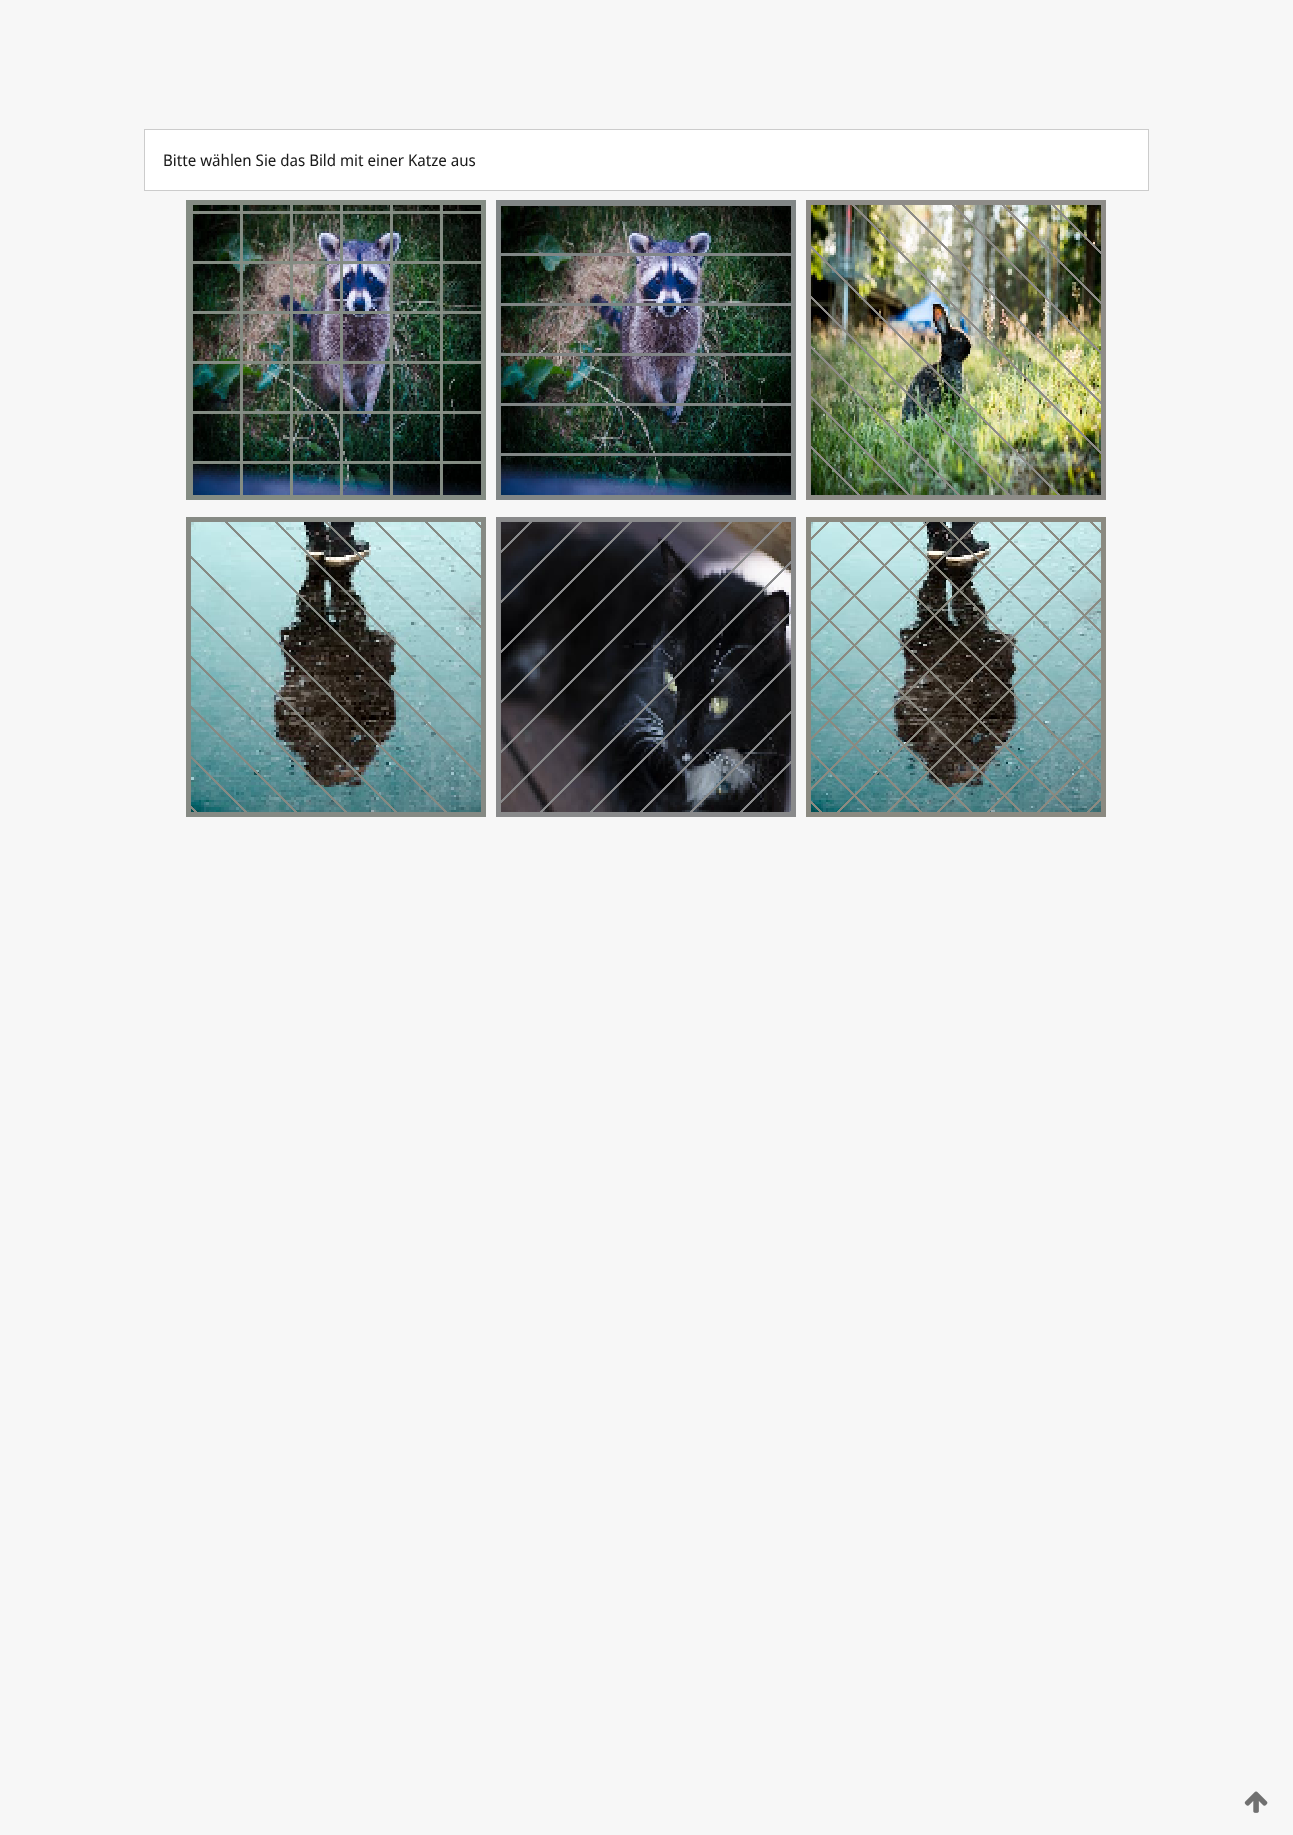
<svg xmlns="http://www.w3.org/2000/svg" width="1293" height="1835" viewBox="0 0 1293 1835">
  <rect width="100%" height="100%" fill="#f7f7f7"/>
  <rect x="144.5" y="129.5" width="1004" height="61" fill="#ffffff" stroke="#cccccc"/>
  <text x="163" y="166" font-family="Noto Sans Display" font-size="16" fill="#1a1a1a">Bitte wählen Sie das Bild mit einer Katze aus</text>
  <image x="186" y="200" width="300" height="300" href="img1.png"/>
  <image x="496" y="200" width="300" height="300" href="img2.png"/>
  <image x="806" y="200" width="300" height="300" href="img3.png"/>
  <image x="186" y="517" width="300" height="300" href="img4.png"/>
  <image x="496" y="517" width="300" height="300" href="img5.png"/>
  <image x="806" y="517" width="300" height="300" href="img6.png"/>
  <image x="1244" y="1791" width="24" height="22" href="img7.png"/>
</svg>
